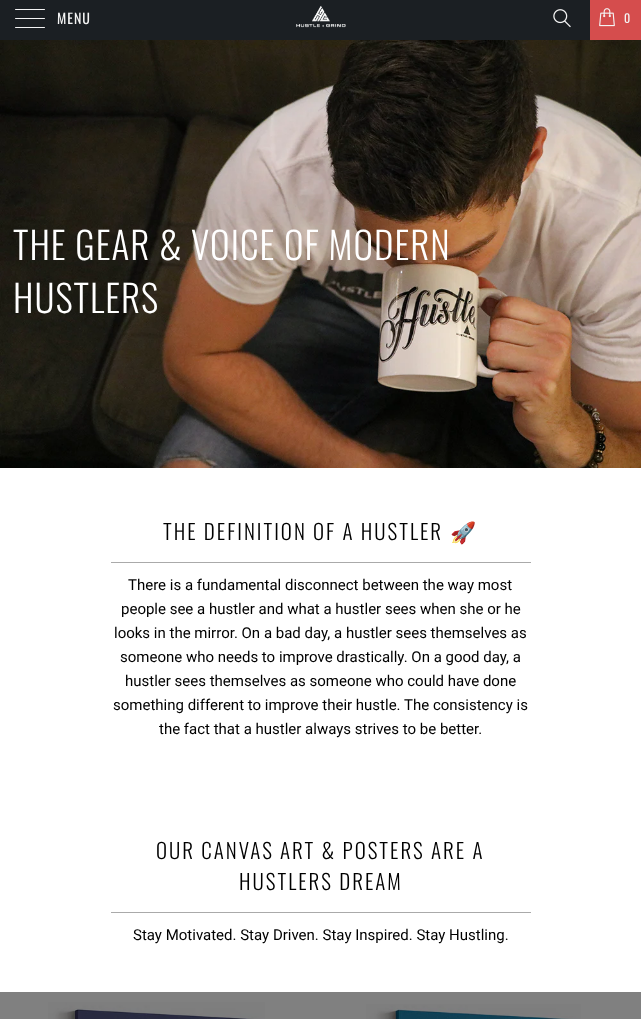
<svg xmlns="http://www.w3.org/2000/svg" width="641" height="1019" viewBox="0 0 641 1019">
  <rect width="100%" height="100%" fill="#ffffff"/>
  <rect x="0" y="992" width="641" height="27" fill="#808080"/>
  <rect x="0" y="0" width="590" height="40" fill="#1b1f23"/>
  <rect x="15" y="9" width="30" height="1" rx="0.5" fill="#f4f4f4"/>
  <rect x="15" y="18" width="30" height="1" rx="0.5" fill="#f4f4f4"/>
  <rect x="15" y="27" width="30" height="1" rx="0.5" fill="#f4f4f4"/>
  <text x="57" y="24" font-family="Oswald" font-size="14" letter-spacing="1" fill="#f4f4f4">MENU</text>
  <image x="296" y="5" width="50" height="23" href="img1.png"/>
  <image x="553" y="9" width="18" height="19" href="img2.png"/>
  <rect x="590" y="0" width="51" height="40" fill="#d54d4d"/>
  <image x="599" y="8" width="16" height="19" href="img3.png"/>
  <text x="624" y="23" font-family="Oswald" font-size="12" letter-spacing="1" fill="#f4f4f4">0</text>
  <image x="0" y="40" width="641" height="428" href="img4.png"/>
  <text x="13" y="260" font-family="Oswald" font-size="37.25" font-weight="300" letter-spacing="1" fill="#ffffff">THE GEAR &amp; VOICE OF MODERN</text>
  <text x="13" y="313" font-family="Oswald" font-size="37.25" font-weight="300" letter-spacing="1" fill="#ffffff">HUSTLERS</text>
  <text x="163" y="540" font-family="Oswald" font-size="21" font-weight="300" letter-spacing="2" fill="#000000">THE DEFINITION OF A HUSTLER</text>
  <text x="450" y="540" font-family="Noto Color Emoji" font-size="21" letter-spacing="2" fill="#000000">🚀</text>
  <rect x="111" y="562" width="420" height="1" fill="#aaaaaa"/>
  <text x="128" y="590" font-family="Roboto" font-size="15" fill="#000000">There is a fundamental disconnect between the way most</text>
  <text x="121" y="614" font-family="Roboto" font-size="15" fill="#000000">people see a hustler and what a hustler sees when she or he</text>
  <text x="114" y="638" font-family="Roboto" font-size="15" fill="#000000">looks in the mirror. On a bad day, a hustler sees themselves as</text>
  <text x="120" y="662" font-family="Roboto" font-size="15" fill="#000000">someone who needs to improve drastically. On a good day, a</text>
  <text x="125" y="686" font-family="Roboto" font-size="15" fill="#000000">hustler sees themselves as someone who could have done</text>
  <text x="113" y="710" font-family="Roboto" font-size="15" fill="#000000">something different to improve their hustle. The consistency is</text>
  <text x="159" y="734" font-family="Roboto" font-size="15" fill="#000000">the fact that a hustler always strives to be better.</text>
  <text x="156" y="859" font-family="Oswald" font-size="21" font-weight="300" letter-spacing="2" fill="#000000">OUR CANVAS ART &amp; POSTERS ARE A</text>
  <text x="239" y="890" font-family="Oswald" font-size="21" font-weight="300" letter-spacing="2" fill="#000000">HUSTLERS DREAM</text>
  <rect x="111" y="912" width="420" height="1" fill="#aaaaaa"/>
  <text x="133" y="940" font-family="Roboto" font-size="15" fill="#000000">Stay Motivated. Stay Driven. Stay Inspired. Stay Hustling.</text>
  <image x="48" y="1002" width="217" height="17" href="img5.png"/>
  <image x="366" y="1004" width="215" height="15" href="img6.png"/>
</svg>
